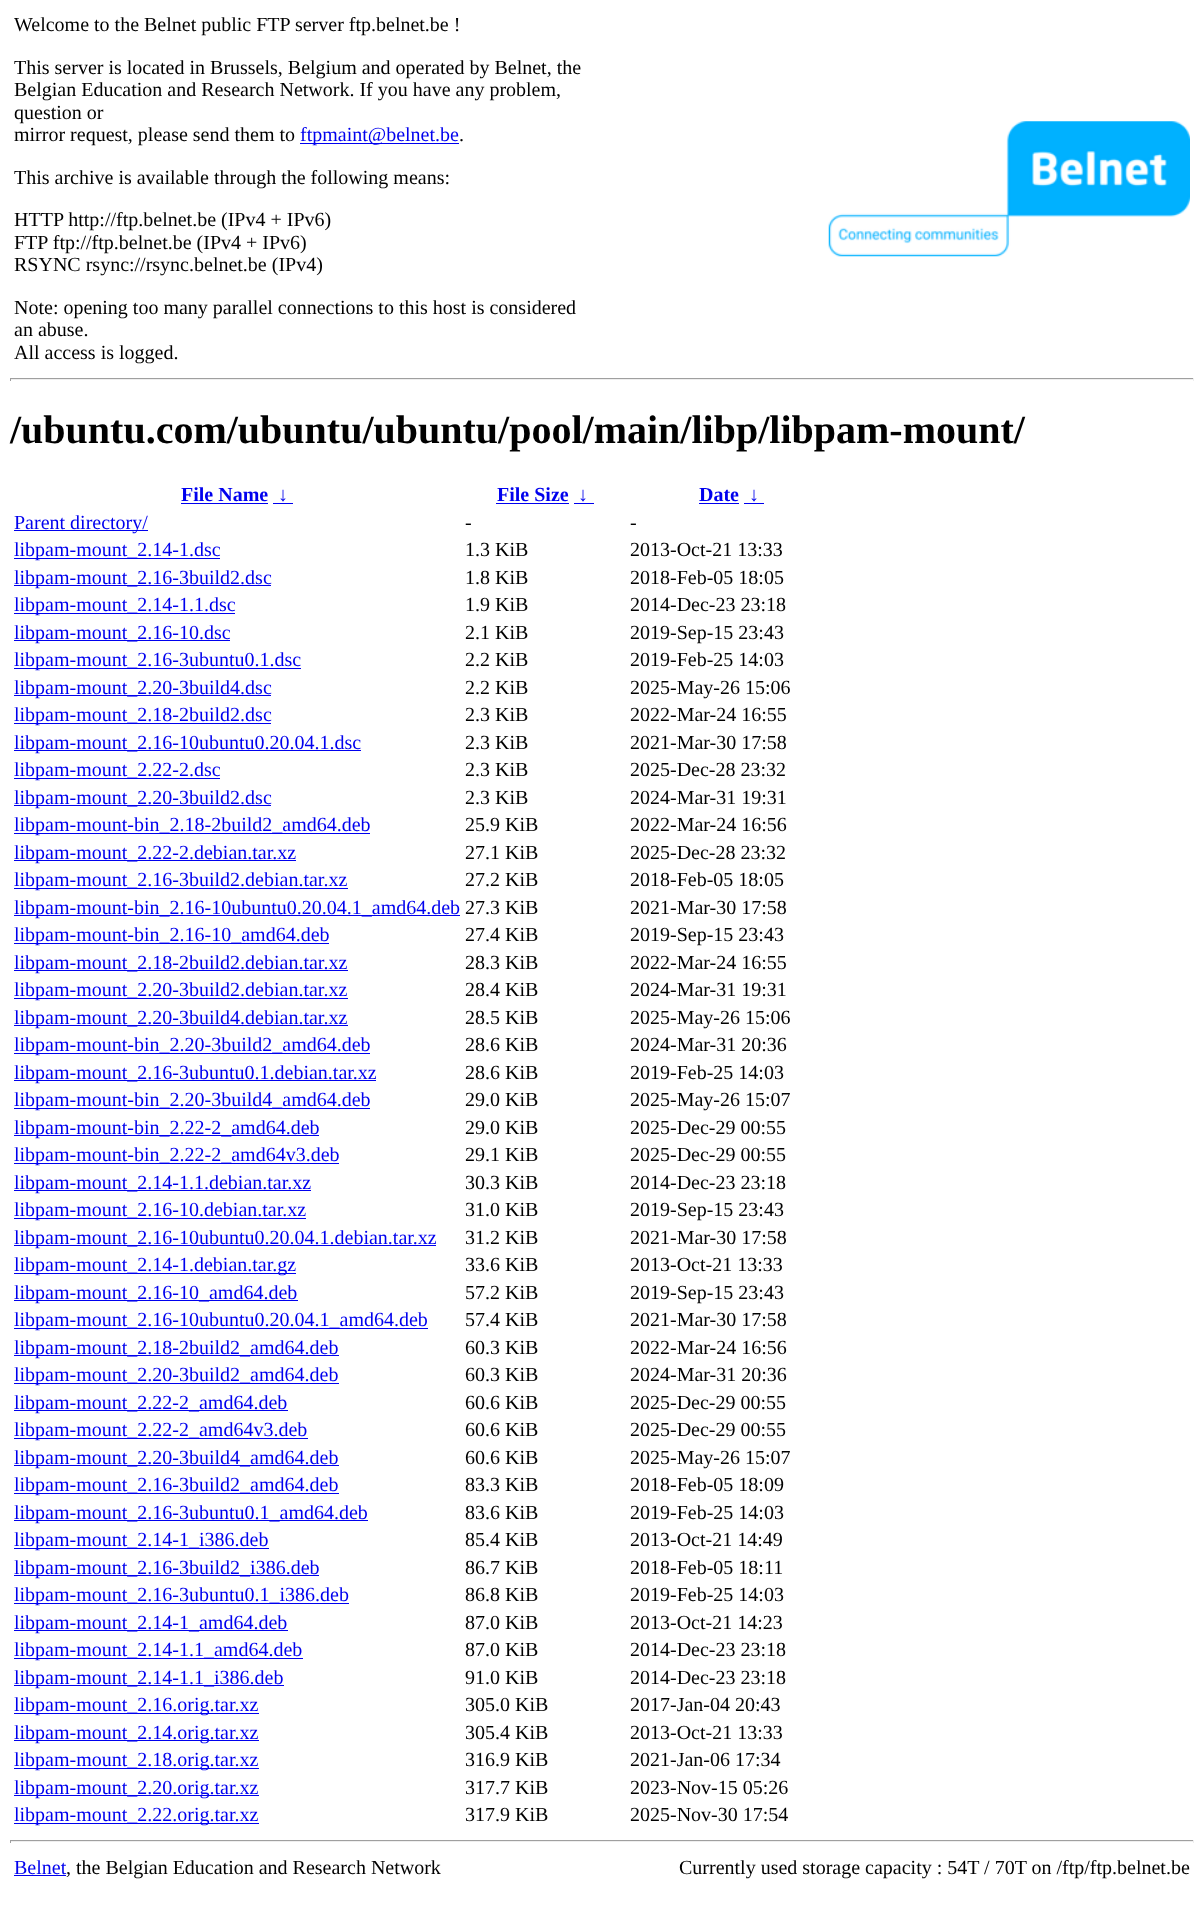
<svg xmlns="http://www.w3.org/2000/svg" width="1203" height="1929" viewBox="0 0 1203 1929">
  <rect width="100%" height="100%" fill="#ffffff"/>
  <text x="14" y="31" font-family="Liberation Serif" font-size="20" fill="#000000">Welcome to the Belnet public FTP server ftp.belnet.be !</text>
  <text x="14" y="74" font-family="Liberation Serif" font-size="20" fill="#000000">This server is located in Brussels, Belgium and operated by Belnet, the</text>
  <text x="14" y="96" font-family="Liberation Serif" font-size="20" fill="#000000">Belgian Education and Research Network. If you have any problem,</text>
  <text x="14" y="119" font-family="Liberation Serif" font-size="20" fill="#000000">question or</text>
  <text x="14" y="141" font-family="Liberation Serif" font-size="20" fill="#000000">mirror request, please send them to</text>
  <rect x="300" y="143" width="159" height="1" fill="#0000ee"/>
  <text x="300" y="141" font-family="Liberation Serif" font-size="20" fill="#0000ee">ftpmaint@belnet.be</text>
  <text x="459" y="141" font-family="Liberation Serif" font-size="20" fill="#000000">.</text>
  <text x="14" y="184" font-family="Liberation Serif" font-size="20" fill="#000000">This archive is available through the following means:</text>
  <text x="14" y="226" font-family="Liberation Serif" font-size="20" fill="#000000">HTTP http://ftp.belnet.be (IPv4 + IPv6)</text>
  <text x="14" y="249" font-family="Liberation Serif" font-size="20" fill="#000000">FTP ftp://ftp.belnet.be (IPv4 + IPv6)</text>
  <text x="14" y="271" font-family="Liberation Serif" font-size="20" fill="#000000">RSYNC rsync://rsync.belnet.be (IPv4)</text>
  <text x="14" y="314" font-family="Liberation Serif" font-size="20" fill="#000000">Note: opening too many parallel connections to this host is considered</text>
  <text x="14" y="336" font-family="Liberation Serif" font-size="20" fill="#000000">an abuse.</text>
  <text x="14" y="359" font-family="Liberation Serif" font-size="20" fill="#000000">All access is logged.</text>
  <image x="828" y="121" width="362" height="136" href="img1.png"/>
  <rect x="10" y="378" width="1184" height="1" fill="#9f9f9f"/>
  <rect x="1193" y="378" width="1" height="3" fill="#eeeeee"/>
  <rect x="10" y="379" width="1184" height="1" fill="#eeeeee"/>
  <rect x="10" y="378" width="1" height="3" fill="#9f9f9f"/>
  <text x="10" y="443" font-family="Liberation Serif" font-size="40" font-weight="bold" fill="#000000">/ubuntu.com/ubuntu/ubuntu/pool/main/libp/libpam-mount/</text>
  <text x="181" y="501" font-family="Liberation Serif" font-size="20" font-weight="bold" fill="#0000ee">File Name</text>
  <rect x="181" y="503" width="87" height="1" fill="#0000ee"/>
  <text x="278" y="501" font-family="Liberation Serif" font-size="20" font-weight="bold" fill="#0000ee">↓</text>
  <rect x="273" y="503" width="20" height="1" fill="#0000ee"/>
  <text x="497" y="501" font-family="Liberation Serif" font-size="20" font-weight="bold" fill="#0000ee">File Size</text>
  <rect x="496" y="503" width="73" height="1" fill="#0000ee"/>
  <text x="578" y="501" font-family="Liberation Serif" font-size="20" font-weight="bold" fill="#0000ee">↓</text>
  <rect x="574" y="503" width="20" height="1" fill="#0000ee"/>
  <text x="699" y="501" font-family="Liberation Serif" font-size="20" font-weight="bold" fill="#0000ee">Date</text>
  <rect x="699" y="503" width="40" height="1" fill="#0000ee"/>
  <text x="749" y="501" font-family="Liberation Serif" font-size="20" font-weight="bold" fill="#0000ee">↓</text>
  <rect x="744" y="503" width="20" height="1" fill="#0000ee"/>
  <rect x="14" y="530" width="134" height="1" fill="#0000ee"/>
  <text x="14" y="529" font-family="Liberation Serif" font-size="20" fill="#0000ee">Parent directory/</text>
  <text x="465" y="529" font-family="Liberation Serif" font-size="20" fill="#000000">-</text>
  <text x="630" y="529" font-family="Liberation Serif" font-size="20" fill="#000000">-</text>
  <rect x="14" y="558" width="206" height="1" fill="#0000ee"/>
  <text x="14" y="556" font-family="Liberation Serif" font-size="20" fill="#0000ee">libpam-mount_2.14-1.dsc</text>
  <text x="465" y="556" font-family="Liberation Serif" font-size="20" fill="#000000">1.3 KiB</text>
  <text x="630" y="556" font-family="Liberation Serif" font-size="20" fill="#000000">2013-Oct-21 13:33</text>
  <rect x="14" y="585" width="257" height="1" fill="#0000ee"/>
  <text x="14" y="584" font-family="Liberation Serif" font-size="20" fill="#0000ee">libpam-mount_2.16-3build2.dsc</text>
  <text x="465" y="584" font-family="Liberation Serif" font-size="20" fill="#000000">1.8 KiB</text>
  <text x="630" y="584" font-family="Liberation Serif" font-size="20" fill="#000000">2018-Feb-05 18:05</text>
  <rect x="14" y="613" width="221" height="1" fill="#0000ee"/>
  <text x="14" y="611" font-family="Liberation Serif" font-size="20" fill="#0000ee">libpam-mount_2.14-1.1.dsc</text>
  <text x="465" y="611" font-family="Liberation Serif" font-size="20" fill="#000000">1.9 KiB</text>
  <text x="630" y="611" font-family="Liberation Serif" font-size="20" fill="#000000">2014-Dec-23 23:18</text>
  <rect x="14" y="640" width="216" height="1" fill="#0000ee"/>
  <text x="14" y="639" font-family="Liberation Serif" font-size="20" fill="#0000ee">libpam-mount_2.16-10.dsc</text>
  <text x="465" y="639" font-family="Liberation Serif" font-size="20" fill="#000000">2.1 KiB</text>
  <text x="630" y="639" font-family="Liberation Serif" font-size="20" fill="#000000">2019-Sep-15 23:43</text>
  <rect x="14" y="668" width="287" height="1" fill="#0000ee"/>
  <text x="14" y="666" font-family="Liberation Serif" font-size="20" fill="#0000ee">libpam-mount_2.16-3ubuntu0.1.dsc</text>
  <text x="465" y="666" font-family="Liberation Serif" font-size="20" fill="#000000">2.2 KiB</text>
  <text x="630" y="666" font-family="Liberation Serif" font-size="20" fill="#000000">2019-Feb-25 14:03</text>
  <rect x="14" y="695" width="257" height="1" fill="#0000ee"/>
  <text x="14" y="694" font-family="Liberation Serif" font-size="20" fill="#0000ee">libpam-mount_2.20-3build4.dsc</text>
  <text x="465" y="694" font-family="Liberation Serif" font-size="20" fill="#000000">2.2 KiB</text>
  <text x="630" y="694" font-family="Liberation Serif" font-size="20" fill="#000000">2025-May-26 15:06</text>
  <rect x="14" y="723" width="257" height="1" fill="#0000ee"/>
  <text x="14" y="721" font-family="Liberation Serif" font-size="20" fill="#0000ee">libpam-mount_2.18-2build2.dsc</text>
  <text x="465" y="721" font-family="Liberation Serif" font-size="20" fill="#000000">2.3 KiB</text>
  <text x="630" y="721" font-family="Liberation Serif" font-size="20" fill="#000000">2022-Mar-24 16:55</text>
  <rect x="14" y="750" width="347" height="1" fill="#0000ee"/>
  <text x="14" y="749" font-family="Liberation Serif" font-size="20" fill="#0000ee">libpam-mount_2.16-10ubuntu0.20.04.1.dsc</text>
  <text x="465" y="749" font-family="Liberation Serif" font-size="20" fill="#000000">2.3 KiB</text>
  <text x="630" y="749" font-family="Liberation Serif" font-size="20" fill="#000000">2021-Mar-30 17:58</text>
  <rect x="14" y="778" width="206" height="1" fill="#0000ee"/>
  <text x="14" y="776" font-family="Liberation Serif" font-size="20" fill="#0000ee">libpam-mount_2.22-2.dsc</text>
  <text x="465" y="776" font-family="Liberation Serif" font-size="20" fill="#000000">2.3 KiB</text>
  <text x="630" y="776" font-family="Liberation Serif" font-size="20" fill="#000000">2025-Dec-28 23:32</text>
  <rect x="14" y="805" width="257" height="1" fill="#0000ee"/>
  <text x="14" y="804" font-family="Liberation Serif" font-size="20" fill="#0000ee">libpam-mount_2.20-3build2.dsc</text>
  <text x="465" y="804" font-family="Liberation Serif" font-size="20" fill="#000000">2.3 KiB</text>
  <text x="630" y="804" font-family="Liberation Serif" font-size="20" fill="#000000">2024-Mar-31 19:31</text>
  <rect x="14" y="833" width="356" height="1" fill="#0000ee"/>
  <text x="14" y="831" font-family="Liberation Serif" font-size="20" fill="#0000ee">libpam-mount-bin_2.18-2build2_amd64.deb</text>
  <text x="465" y="831" font-family="Liberation Serif" font-size="20" fill="#000000">25.9 KiB</text>
  <text x="630" y="831" font-family="Liberation Serif" font-size="20" fill="#000000">2022-Mar-24 16:56</text>
  <rect x="14" y="860" width="282" height="1" fill="#0000ee"/>
  <text x="14" y="859" font-family="Liberation Serif" font-size="20" fill="#0000ee">libpam-mount_2.22-2.debian.tar.xz</text>
  <text x="465" y="859" font-family="Liberation Serif" font-size="20" fill="#000000">27.1 KiB</text>
  <text x="630" y="859" font-family="Liberation Serif" font-size="20" fill="#000000">2025-Dec-28 23:32</text>
  <rect x="14" y="888" width="334" height="1" fill="#0000ee"/>
  <text x="14" y="886" font-family="Liberation Serif" font-size="20" fill="#0000ee">libpam-mount_2.16-3build2.debian.tar.xz</text>
  <text x="465" y="886" font-family="Liberation Serif" font-size="20" fill="#000000">27.2 KiB</text>
  <text x="630" y="886" font-family="Liberation Serif" font-size="20" fill="#000000">2018-Feb-05 18:05</text>
  <rect x="14" y="915" width="446" height="1" fill="#0000ee"/>
  <text x="14" y="914" font-family="Liberation Serif" font-size="20" fill="#0000ee">libpam-mount-bin_2.16-10ubuntu0.20.04.1_amd64.deb</text>
  <text x="465" y="914" font-family="Liberation Serif" font-size="20" fill="#000000">27.3 KiB</text>
  <text x="630" y="914" font-family="Liberation Serif" font-size="20" fill="#000000">2021-Mar-30 17:58</text>
  <rect x="14" y="943" width="315" height="1" fill="#0000ee"/>
  <text x="14" y="941" font-family="Liberation Serif" font-size="20" fill="#0000ee">libpam-mount-bin_2.16-10_amd64.deb</text>
  <text x="465" y="941" font-family="Liberation Serif" font-size="20" fill="#000000">27.4 KiB</text>
  <text x="630" y="941" font-family="Liberation Serif" font-size="20" fill="#000000">2019-Sep-15 23:43</text>
  <rect x="14" y="970" width="334" height="1" fill="#0000ee"/>
  <text x="14" y="969" font-family="Liberation Serif" font-size="20" fill="#0000ee">libpam-mount_2.18-2build2.debian.tar.xz</text>
  <text x="465" y="969" font-family="Liberation Serif" font-size="20" fill="#000000">28.3 KiB</text>
  <text x="630" y="969" font-family="Liberation Serif" font-size="20" fill="#000000">2022-Mar-24 16:55</text>
  <rect x="14" y="998" width="334" height="1" fill="#0000ee"/>
  <text x="14" y="996" font-family="Liberation Serif" font-size="20" fill="#0000ee">libpam-mount_2.20-3build2.debian.tar.xz</text>
  <text x="465" y="996" font-family="Liberation Serif" font-size="20" fill="#000000">28.4 KiB</text>
  <text x="630" y="996" font-family="Liberation Serif" font-size="20" fill="#000000">2024-Mar-31 19:31</text>
  <rect x="14" y="1025" width="334" height="1" fill="#0000ee"/>
  <text x="14" y="1024" font-family="Liberation Serif" font-size="20" fill="#0000ee">libpam-mount_2.20-3build4.debian.tar.xz</text>
  <text x="465" y="1024" font-family="Liberation Serif" font-size="20" fill="#000000">28.5 KiB</text>
  <text x="630" y="1024" font-family="Liberation Serif" font-size="20" fill="#000000">2025-May-26 15:06</text>
  <rect x="14" y="1053" width="356" height="1" fill="#0000ee"/>
  <text x="14" y="1051" font-family="Liberation Serif" font-size="20" fill="#0000ee">libpam-mount-bin_2.20-3build2_amd64.deb</text>
  <text x="465" y="1051" font-family="Liberation Serif" font-size="20" fill="#000000">28.6 KiB</text>
  <text x="630" y="1051" font-family="Liberation Serif" font-size="20" fill="#000000">2024-Mar-31 20:36</text>
  <rect x="14" y="1080" width="362" height="1" fill="#0000ee"/>
  <text x="14" y="1079" font-family="Liberation Serif" font-size="20" fill="#0000ee">libpam-mount_2.16-3ubuntu0.1.debian.tar.xz</text>
  <text x="465" y="1079" font-family="Liberation Serif" font-size="20" fill="#000000">28.6 KiB</text>
  <text x="630" y="1079" font-family="Liberation Serif" font-size="20" fill="#000000">2019-Feb-25 14:03</text>
  <rect x="14" y="1108" width="356" height="1" fill="#0000ee"/>
  <text x="14" y="1106" font-family="Liberation Serif" font-size="20" fill="#0000ee">libpam-mount-bin_2.20-3build4_amd64.deb</text>
  <text x="465" y="1106" font-family="Liberation Serif" font-size="20" fill="#000000">29.0 KiB</text>
  <text x="630" y="1106" font-family="Liberation Serif" font-size="20" fill="#000000">2025-May-26 15:07</text>
  <rect x="14" y="1135" width="305" height="1" fill="#0000ee"/>
  <text x="14" y="1134" font-family="Liberation Serif" font-size="20" fill="#0000ee">libpam-mount-bin_2.22-2_amd64.deb</text>
  <text x="465" y="1134" font-family="Liberation Serif" font-size="20" fill="#000000">29.0 KiB</text>
  <text x="630" y="1134" font-family="Liberation Serif" font-size="20" fill="#000000">2025-Dec-29 00:55</text>
  <rect x="14" y="1163" width="325" height="1" fill="#0000ee"/>
  <text x="14" y="1161" font-family="Liberation Serif" font-size="20" fill="#0000ee">libpam-mount-bin_2.22-2_amd64v3.deb</text>
  <text x="465" y="1161" font-family="Liberation Serif" font-size="20" fill="#000000">29.1 KiB</text>
  <text x="630" y="1161" font-family="Liberation Serif" font-size="20" fill="#000000">2025-Dec-29 00:55</text>
  <rect x="14" y="1190" width="297" height="1" fill="#0000ee"/>
  <text x="14" y="1189" font-family="Liberation Serif" font-size="20" fill="#0000ee">libpam-mount_2.14-1.1.debian.tar.xz</text>
  <text x="465" y="1189" font-family="Liberation Serif" font-size="20" fill="#000000">30.3 KiB</text>
  <text x="630" y="1189" font-family="Liberation Serif" font-size="20" fill="#000000">2014-Dec-23 23:18</text>
  <rect x="14" y="1218" width="292" height="1" fill="#0000ee"/>
  <text x="14" y="1216" font-family="Liberation Serif" font-size="20" fill="#0000ee">libpam-mount_2.16-10.debian.tar.xz</text>
  <text x="465" y="1216" font-family="Liberation Serif" font-size="20" fill="#000000">31.0 KiB</text>
  <text x="630" y="1216" font-family="Liberation Serif" font-size="20" fill="#000000">2019-Sep-15 23:43</text>
  <rect x="14" y="1245" width="422" height="1" fill="#0000ee"/>
  <text x="14" y="1244" font-family="Liberation Serif" font-size="20" fill="#0000ee">libpam-mount_2.16-10ubuntu0.20.04.1.debian.tar.xz</text>
  <text x="465" y="1244" font-family="Liberation Serif" font-size="20" fill="#000000">31.2 KiB</text>
  <text x="630" y="1244" font-family="Liberation Serif" font-size="20" fill="#000000">2021-Mar-30 17:58</text>
  <rect x="14" y="1273" width="282" height="1" fill="#0000ee"/>
  <text x="14" y="1271" font-family="Liberation Serif" font-size="20" fill="#0000ee">libpam-mount_2.14-1.debian.tar.gz</text>
  <text x="465" y="1271" font-family="Liberation Serif" font-size="20" fill="#000000">33.6 KiB</text>
  <text x="630" y="1271" font-family="Liberation Serif" font-size="20" fill="#000000">2013-Oct-21 13:33</text>
  <rect x="14" y="1300" width="284" height="1" fill="#0000ee"/>
  <text x="14" y="1299" font-family="Liberation Serif" font-size="20" fill="#0000ee">libpam-mount_2.16-10_amd64.deb</text>
  <text x="465" y="1299" font-family="Liberation Serif" font-size="20" fill="#000000">57.2 KiB</text>
  <text x="630" y="1299" font-family="Liberation Serif" font-size="20" fill="#000000">2019-Sep-15 23:43</text>
  <rect x="14" y="1328" width="414" height="1" fill="#0000ee"/>
  <text x="14" y="1326" font-family="Liberation Serif" font-size="20" fill="#0000ee">libpam-mount_2.16-10ubuntu0.20.04.1_amd64.deb</text>
  <text x="465" y="1326" font-family="Liberation Serif" font-size="20" fill="#000000">57.4 KiB</text>
  <text x="630" y="1326" font-family="Liberation Serif" font-size="20" fill="#000000">2021-Mar-30 17:58</text>
  <rect x="14" y="1355" width="325" height="1" fill="#0000ee"/>
  <text x="14" y="1354" font-family="Liberation Serif" font-size="20" fill="#0000ee">libpam-mount_2.18-2build2_amd64.deb</text>
  <text x="465" y="1354" font-family="Liberation Serif" font-size="20" fill="#000000">60.3 KiB</text>
  <text x="630" y="1354" font-family="Liberation Serif" font-size="20" fill="#000000">2022-Mar-24 16:56</text>
  <rect x="14" y="1383" width="325" height="1" fill="#0000ee"/>
  <text x="14" y="1381" font-family="Liberation Serif" font-size="20" fill="#0000ee">libpam-mount_2.20-3build2_amd64.deb</text>
  <text x="465" y="1381" font-family="Liberation Serif" font-size="20" fill="#000000">60.3 KiB</text>
  <text x="630" y="1381" font-family="Liberation Serif" font-size="20" fill="#000000">2024-Mar-31 20:36</text>
  <rect x="14" y="1410" width="274" height="1" fill="#0000ee"/>
  <text x="14" y="1409" font-family="Liberation Serif" font-size="20" fill="#0000ee">libpam-mount_2.22-2_amd64.deb</text>
  <text x="465" y="1409" font-family="Liberation Serif" font-size="20" fill="#000000">60.6 KiB</text>
  <text x="630" y="1409" font-family="Liberation Serif" font-size="20" fill="#000000">2025-Dec-29 00:55</text>
  <rect x="14" y="1438" width="294" height="1" fill="#0000ee"/>
  <text x="14" y="1436" font-family="Liberation Serif" font-size="20" fill="#0000ee">libpam-mount_2.22-2_amd64v3.deb</text>
  <text x="465" y="1436" font-family="Liberation Serif" font-size="20" fill="#000000">60.6 KiB</text>
  <text x="630" y="1436" font-family="Liberation Serif" font-size="20" fill="#000000">2025-Dec-29 00:55</text>
  <rect x="14" y="1465" width="325" height="1" fill="#0000ee"/>
  <text x="14" y="1464" font-family="Liberation Serif" font-size="20" fill="#0000ee">libpam-mount_2.20-3build4_amd64.deb</text>
  <text x="465" y="1464" font-family="Liberation Serif" font-size="20" fill="#000000">60.6 KiB</text>
  <text x="630" y="1464" font-family="Liberation Serif" font-size="20" fill="#000000">2025-May-26 15:07</text>
  <rect x="14" y="1493" width="325" height="1" fill="#0000ee"/>
  <text x="14" y="1491" font-family="Liberation Serif" font-size="20" fill="#0000ee">libpam-mount_2.16-3build2_amd64.deb</text>
  <text x="465" y="1491" font-family="Liberation Serif" font-size="20" fill="#000000">83.3 KiB</text>
  <text x="630" y="1491" font-family="Liberation Serif" font-size="20" fill="#000000">2018-Feb-05 18:09</text>
  <rect x="14" y="1520" width="354" height="1" fill="#0000ee"/>
  <text x="14" y="1519" font-family="Liberation Serif" font-size="20" fill="#0000ee">libpam-mount_2.16-3ubuntu0.1_amd64.deb</text>
  <text x="465" y="1519" font-family="Liberation Serif" font-size="20" fill="#000000">83.6 KiB</text>
  <text x="630" y="1519" font-family="Liberation Serif" font-size="20" fill="#000000">2019-Feb-25 14:03</text>
  <rect x="14" y="1548" width="255" height="1" fill="#0000ee"/>
  <text x="14" y="1546" font-family="Liberation Serif" font-size="20" fill="#0000ee">libpam-mount_2.14-1_i386.deb</text>
  <text x="465" y="1546" font-family="Liberation Serif" font-size="20" fill="#000000">85.4 KiB</text>
  <text x="630" y="1546" font-family="Liberation Serif" font-size="20" fill="#000000">2013-Oct-21 14:49</text>
  <rect x="14" y="1575" width="305" height="1" fill="#0000ee"/>
  <text x="14" y="1574" font-family="Liberation Serif" font-size="20" fill="#0000ee">libpam-mount_2.16-3build2_i386.deb</text>
  <text x="465" y="1574" font-family="Liberation Serif" font-size="20" fill="#000000">86.7 KiB</text>
  <text x="630" y="1574" font-family="Liberation Serif" font-size="20" fill="#000000">2018-Feb-05 18:11</text>
  <rect x="14" y="1603" width="335" height="1" fill="#0000ee"/>
  <text x="14" y="1601" font-family="Liberation Serif" font-size="20" fill="#0000ee">libpam-mount_2.16-3ubuntu0.1_i386.deb</text>
  <text x="465" y="1601" font-family="Liberation Serif" font-size="20" fill="#000000">86.8 KiB</text>
  <text x="630" y="1601" font-family="Liberation Serif" font-size="20" fill="#000000">2019-Feb-25 14:03</text>
  <rect x="14" y="1630" width="274" height="1" fill="#0000ee"/>
  <text x="14" y="1629" font-family="Liberation Serif" font-size="20" fill="#0000ee">libpam-mount_2.14-1_amd64.deb</text>
  <text x="465" y="1629" font-family="Liberation Serif" font-size="20" fill="#000000">87.0 KiB</text>
  <text x="630" y="1629" font-family="Liberation Serif" font-size="20" fill="#000000">2013-Oct-21 14:23</text>
  <rect x="14" y="1658" width="289" height="1" fill="#0000ee"/>
  <text x="14" y="1656" font-family="Liberation Serif" font-size="20" fill="#0000ee">libpam-mount_2.14-1.1_amd64.deb</text>
  <text x="465" y="1656" font-family="Liberation Serif" font-size="20" fill="#000000">87.0 KiB</text>
  <text x="630" y="1656" font-family="Liberation Serif" font-size="20" fill="#000000">2014-Dec-23 23:18</text>
  <rect x="14" y="1685" width="270" height="1" fill="#0000ee"/>
  <text x="14" y="1684" font-family="Liberation Serif" font-size="20" fill="#0000ee">libpam-mount_2.14-1.1_i386.deb</text>
  <text x="465" y="1684" font-family="Liberation Serif" font-size="20" fill="#000000">91.0 KiB</text>
  <text x="630" y="1684" font-family="Liberation Serif" font-size="20" fill="#000000">2014-Dec-23 23:18</text>
  <rect x="14" y="1713" width="245" height="1" fill="#0000ee"/>
  <text x="14" y="1711" font-family="Liberation Serif" font-size="20" fill="#0000ee">libpam-mount_2.16.orig.tar.xz</text>
  <text x="465" y="1711" font-family="Liberation Serif" font-size="20" fill="#000000">305.0 KiB</text>
  <text x="630" y="1711" font-family="Liberation Serif" font-size="20" fill="#000000">2017-Jan-04 20:43</text>
  <rect x="14" y="1740" width="245" height="1" fill="#0000ee"/>
  <text x="14" y="1739" font-family="Liberation Serif" font-size="20" fill="#0000ee">libpam-mount_2.14.orig.tar.xz</text>
  <text x="465" y="1739" font-family="Liberation Serif" font-size="20" fill="#000000">305.4 KiB</text>
  <text x="630" y="1739" font-family="Liberation Serif" font-size="20" fill="#000000">2013-Oct-21 13:33</text>
  <rect x="14" y="1768" width="245" height="1" fill="#0000ee"/>
  <text x="14" y="1766" font-family="Liberation Serif" font-size="20" fill="#0000ee">libpam-mount_2.18.orig.tar.xz</text>
  <text x="465" y="1766" font-family="Liberation Serif" font-size="20" fill="#000000">316.9 KiB</text>
  <text x="630" y="1766" font-family="Liberation Serif" font-size="20" fill="#000000">2021-Jan-06 17:34</text>
  <rect x="14" y="1795" width="245" height="1" fill="#0000ee"/>
  <text x="14" y="1794" font-family="Liberation Serif" font-size="20" fill="#0000ee">libpam-mount_2.20.orig.tar.xz</text>
  <text x="465" y="1794" font-family="Liberation Serif" font-size="20" fill="#000000">317.7 KiB</text>
  <text x="630" y="1794" font-family="Liberation Serif" font-size="20" fill="#000000">2023-Nov-15 05:26</text>
  <rect x="14" y="1823" width="245" height="1" fill="#0000ee"/>
  <text x="14" y="1821" font-family="Liberation Serif" font-size="20" fill="#0000ee">libpam-mount_2.22.orig.tar.xz</text>
  <text x="465" y="1821" font-family="Liberation Serif" font-size="20" fill="#000000">317.9 KiB</text>
  <text x="630" y="1821" font-family="Liberation Serif" font-size="20" fill="#000000">2025-Nov-30 17:54</text>
  <rect x="10" y="1840" width="1184" height="1" fill="#9f9f9f"/>
  <rect x="1193" y="1840" width="1" height="3" fill="#eeeeee"/>
  <rect x="10" y="1841" width="1184" height="1" fill="#eeeeee"/>
  <rect x="10" y="1840" width="1" height="3" fill="#9f9f9f"/>
  <text x="14" y="1874" font-family="Liberation Serif" font-size="20" fill="#0000ee">Belnet</text>
  <rect x="14" y="1875" width="52" height="1" fill="#0000ee"/>
  <text x="66" y="1874" font-family="Liberation Serif" font-size="20" fill="#000000">, the Belgian Education and Research Network</text>
  <text x="679" y="1874" font-family="Liberation Serif" font-size="20" fill="#000000">Currently used storage capacity : 54T / 70T on /ftp/ftp.belnet.be</text>
</svg>
